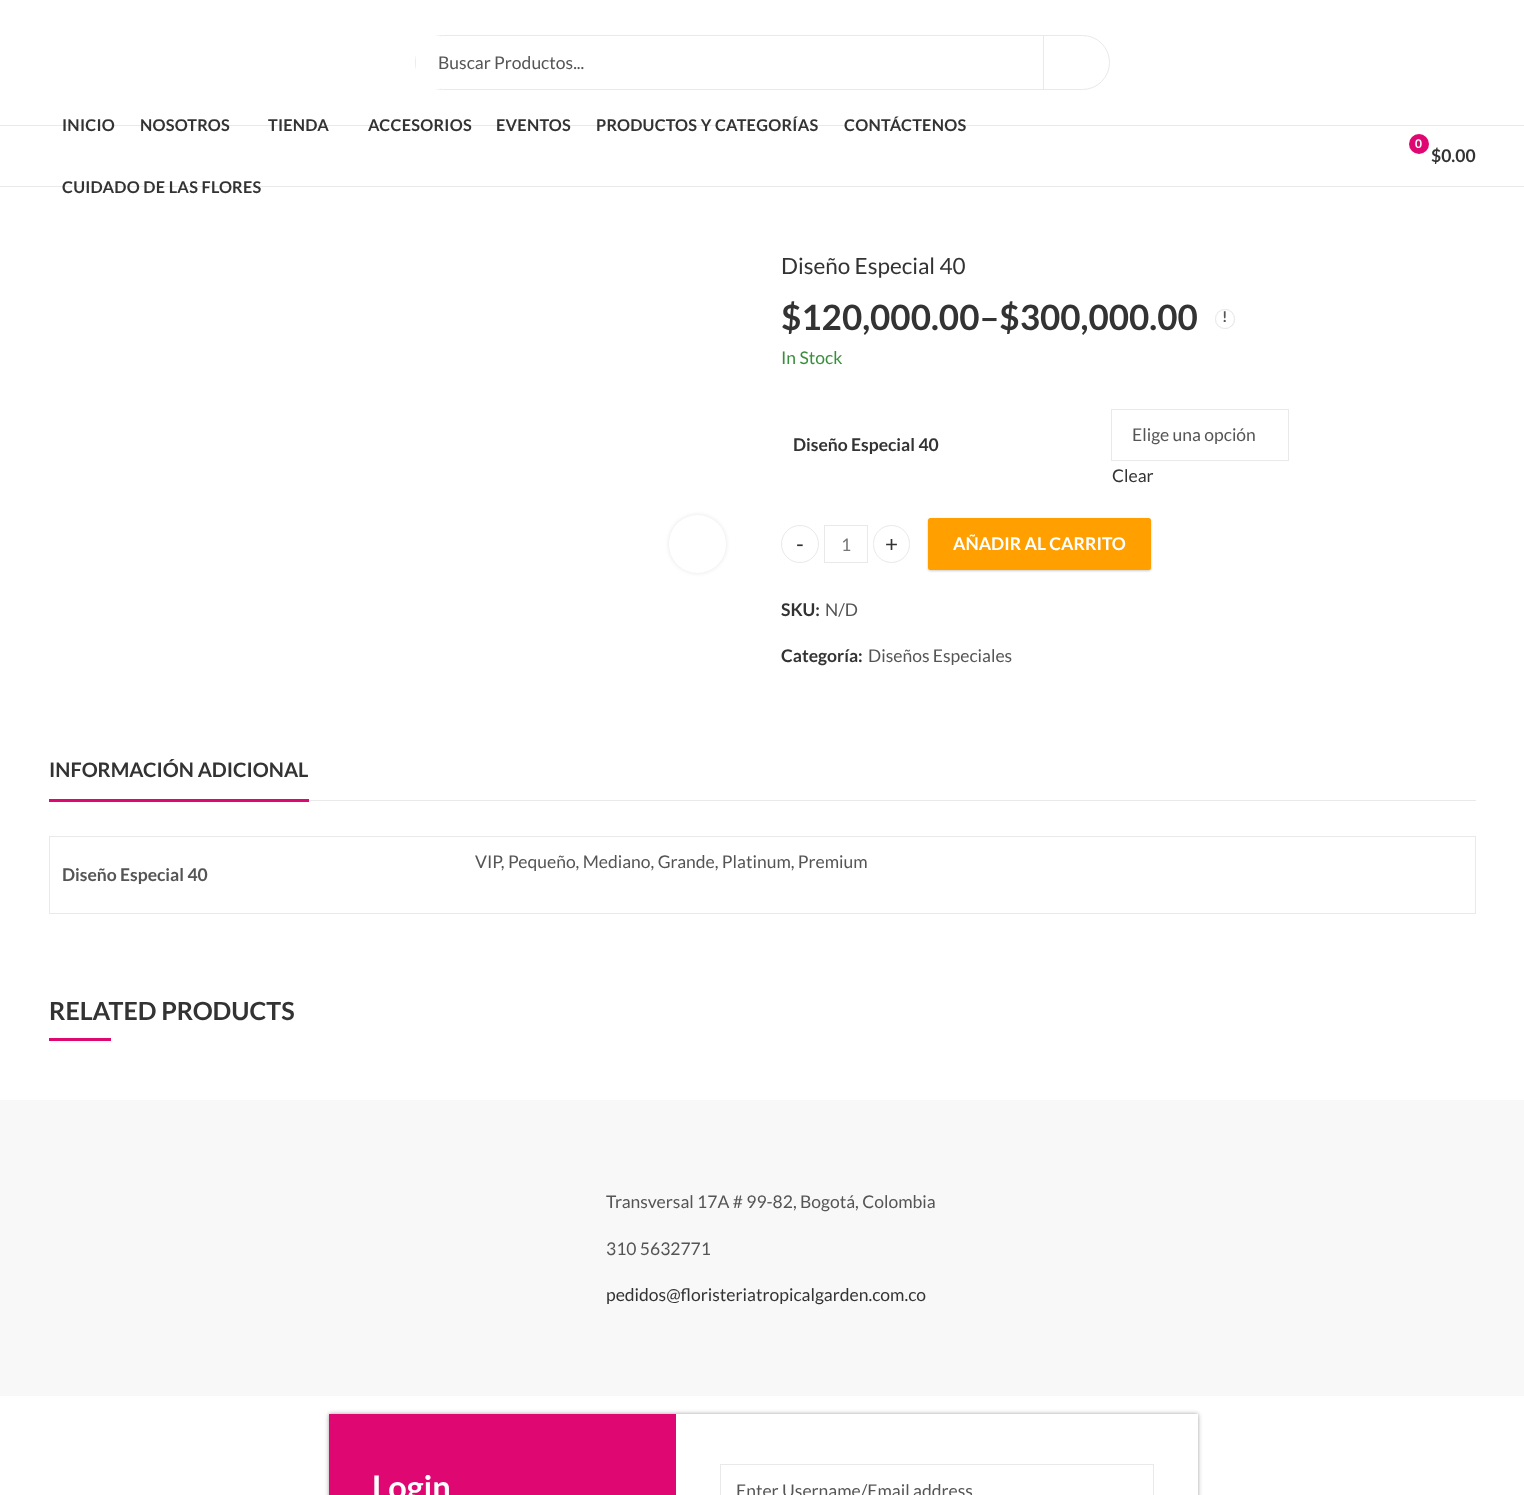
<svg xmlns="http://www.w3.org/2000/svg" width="1524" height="1495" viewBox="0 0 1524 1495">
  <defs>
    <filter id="blur1" x="-50%" y="-200%" width="200%" height="500%"><feGaussianBlur stdDeviation="2"/></filter>
    <clipPath id="clip1"><path d="M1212 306H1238V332H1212ZM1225 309C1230.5 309 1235 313.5 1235 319C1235 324.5 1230.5 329 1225 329C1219.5 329 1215 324.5 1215 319C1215 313.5 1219.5 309 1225 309Z" clip-rule="evenodd"/></clipPath>
    <filter id="blur2" x="-50%" y="-200%" width="200%" height="500%"><feGaussianBlur stdDeviation="0.5"/></filter>
    <filter id="blur3" x="-50%" y="-200%" width="200%" height="500%"><feGaussianBlur stdDeviation="1"/></filter>
  </defs>
  <rect width="100%" height="100%" fill="#ffffff"/>
  <rect x="415.5" y="35.5" width="694" height="54" rx="27" fill="none" stroke="#e9e9e9"/>
  <rect x="416" y="36" width="24" height="53" fill="#ffffff"/>
  <rect x="1043" y="36" width="1" height="53" fill="#e9e9e9"/>
  <text x="438" y="69" font-family="Lato" font-size="17.5" fill="#555555">Buscar Productos...</text>
  <rect x="0" y="125" width="1524" height="1" fill="#e9e9e9"/>
  <rect x="0" y="186" width="1524" height="1" fill="#e9e9e9"/>
  <text x="62" y="131" font-family="Lato" font-size="16.25" font-weight="bold" letter-spacing="0.25" fill="#333333">INICIO</text>
  <text x="140" y="131" font-family="Lato" font-size="16.25" font-weight="bold" letter-spacing="0.25" fill="#333333">NOSOTROS</text>
  <text x="268" y="131" font-family="Lato" font-size="16.25" font-weight="bold" letter-spacing="0.25" fill="#333333">TIENDA</text>
  <text x="368" y="131" font-family="Lato" font-size="16.25" font-weight="bold" letter-spacing="0.25" fill="#333333">ACCESORIOS</text>
  <text x="496" y="131" font-family="Lato" font-size="16.25" font-weight="bold" letter-spacing="0.25" fill="#333333">EVENTOS</text>
  <text x="596" y="131" font-family="Lato" font-size="16.25" font-weight="bold" letter-spacing="0.25" fill="#333333">PRODUCTOS Y CATEGORÍAS</text>
  <text x="844" y="131" font-family="Lato" font-size="16.25" font-weight="bold" letter-spacing="0.25" fill="#333333">CONTÁCTENOS</text>
  <text x="62" y="193" font-family="Lato" font-size="16.25" font-weight="bold" letter-spacing="0.25" fill="#333333">CUIDADO DE LAS FLORES</text>
  <circle cx="1419" cy="144" r="10" fill="#df0772"/>
  <text x="1415" y="148" font-family="Lato" font-size="12" font-weight="bold" fill="#ffffff">0</text>
  <text x="1431" y="162" font-family="Lato" font-size="17.5" font-weight="bold" fill="#333333">$0.00</text>
  <rect x="669" y="515" width="57" height="58" rx="28.5" fill="#000000" fill-opacity="0.1" filter="url(#blur1)"/>
  <rect x="669" y="515" width="57" height="58" rx="28.5" fill="#ffffff"/>
  <text x="781" y="274" font-family="Lato" font-size="22.5" fill="#333333">Diseño Especial 40</text>
  <text x="781" y="330" font-family="Lato" font-size="35" font-weight="bold" fill="#333333">$120,000.00–$300,000.00</text>
  <g clip-path="url(#clip1)">
    <rect x="1215" y="309" width="20" height="20" rx="10" fill="#000000" fill-opacity="0.2" filter="url(#blur2)"/>
  </g>
  <circle cx="1225" cy="319" r="9.5" fill="none" stroke="#e9e9e9"/>
  <text x="1222" y="322" font-family="Lato" font-size="15" font-weight="bold" fill="#555555">!</text>
  <text x="781" y="364" font-family="Lato" font-size="17.5" fill="#388e3c">In Stock</text>
  <text x="793" y="451" font-family="Lato" font-size="17.5" font-weight="bold" fill="#333333">Diseño Especial 40</text>
  <rect x="1111.5" y="409.5" width="177" height="51" fill="none" stroke="#e9e9e9"/>
  <text x="1132" y="441" font-family="Lato" font-size="17.5" fill="#555555">Elige una opción</text>
  <text x="1112" y="482" font-family="Lato" font-size="17.5" fill="#333333">Clear</text>
  <circle cx="800" cy="544" r="18.5" fill="none" stroke="#e9e9e9"/>
  <text x="796" y="552" font-family="Lato" font-size="22.5" fill="#333333">-</text>
  <rect x="824.5" y="525.5" width="43" height="37" fill="none" stroke="#e9e9e9"/>
  <text x="841" y="551" font-family="Lato" font-size="17.5" fill="#777777">1</text>
  <rect x="873.5" y="525.5" width="36" height="37" rx="18" fill="none" stroke="#e9e9e9"/>
  <text x="885" y="552" font-family="Lato" font-size="22.5" fill="#333333">+</text>
  <rect x="928" y="519" width="223" height="52" rx="2.5" fill="#000000" fill-opacity="0.2" filter="url(#blur3)"/>
  <rect x="928" y="518" width="223" height="52" rx="2.5" fill="#ff9f00"/>
  <text x="953" y="550" font-family="Lato" font-size="17.5" font-weight="bold" fill="#ffffff">AÑADIR AL CARRITO</text>
  <text x="781" y="616" font-family="Lato" font-size="17.5" font-weight="bold" fill="#333333">SKU:</text>
  <text x="825" y="616" font-family="Lato" font-size="17.5" fill="#555555">N/D</text>
  <text x="781" y="662" font-family="Lato" font-size="17.5" font-weight="bold" fill="#333333">Categoría:</text>
  <text x="868" y="662" font-family="Lato" font-size="17.5" fill="#555555">Diseños Especiales</text>
  <rect x="309" y="800" width="1167" height="1" fill="#e9e9e9"/>
  <text x="49" y="777" font-family="Lato" font-size="20" font-weight="bold" fill="#333333">INFORMACIÓN ADICIONAL</text>
  <rect x="49" y="799" width="260" height="3" fill="#df0772"/>
  <rect x="49" y="836" width="1427" height="1" fill="#e9e9e9"/>
  <rect x="1475" y="836" width="1" height="78" fill="#e9e9e9"/>
  <rect x="49" y="913" width="1427" height="1" fill="#e9e9e9"/>
  <rect x="49" y="836" width="1" height="78" fill="#e9e9e9"/>
  <text x="475" y="868" font-family="Lato" font-size="17.5" fill="#555555">VIP, Pequeño, Mediano, Grande, Platinum, Premium</text>
  <text x="62" y="881" font-family="Lato" font-size="17.5" font-weight="bold" fill="#555555">Diseño Especial 40</text>
  <text x="49" y="1020" font-family="Lato" font-size="25" font-weight="bold" fill="#333333">RELATED PRODUCTS</text>
  <rect x="49" y="1038" width="62" height="3" fill="#df0772"/>
  <rect x="0" y="1100" width="1524" height="296" fill="#f8f8f8"/>
  <text x="606" y="1208" font-family="Lato" font-size="17.5" fill="#555555">Transversal 17A # 99-82, Bogotá, Colombia</text>
  <text x="606" y="1255" font-family="Lato" font-size="17.5" fill="#555555">310 5632771</text>
  <text x="606" y="1301" font-family="Lato" font-size="17.5" fill="#333333">pedidos@floristeriatropicalgarden.com.co</text>
  <rect x="329" y="1414" width="869" height="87" fill="#000000" fill-opacity="0.2" filter="url(#blur1)"/>
  <rect x="329" y="1414" width="869" height="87" fill="#000000" fill-opacity="0.2" filter="url(#blur1)"/>
  <rect x="676" y="1414" width="522" height="81" fill="#ffffff"/>
  <rect x="329" y="1414" width="347" height="81" fill="#df0772"/>
  <text x="372" y="1499" font-family="Lato" font-size="32.5" font-weight="bold" fill="#ffffff">Login</text>
  <rect x="720.5" y="1464.5" width="433" height="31" fill="none" stroke="#e9e9e9"/>
  <text x="736" y="1497" font-family="Lato" font-size="17.5" fill="#555555">Enter Username/Email address</text>
</svg>
